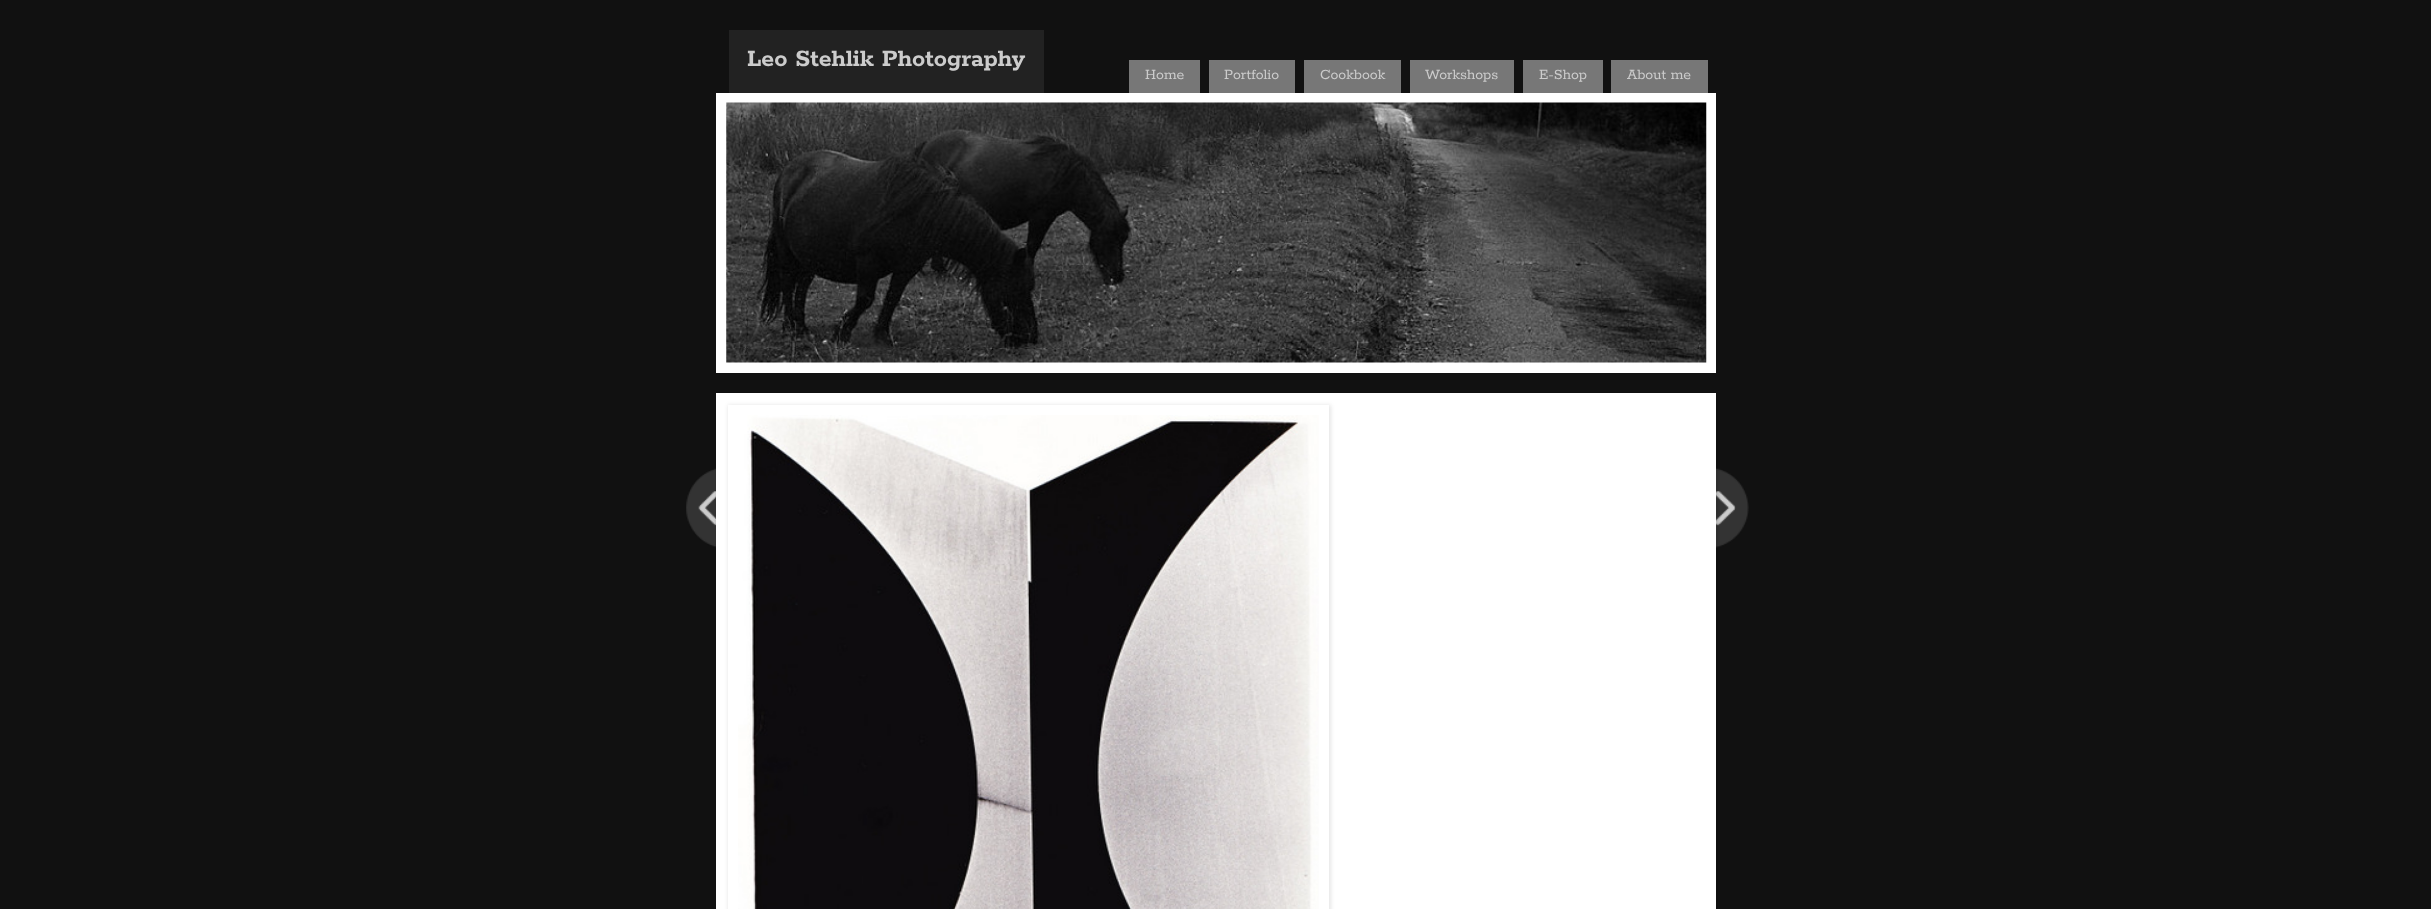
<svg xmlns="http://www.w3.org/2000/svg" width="2431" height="909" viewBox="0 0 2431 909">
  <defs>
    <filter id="blur1" x="-50%" y="-200%" width="200%" height="500%"><feGaussianBlur stdDeviation="1"/></filter>
    <filter id="blur2" x="-50%" y="-200%" width="200%" height="500%"><feGaussianBlur stdDeviation="2"/></filter>
  </defs>
  <rect width="100%" height="100%" fill="#111111"/>
  <rect x="729" y="30" width="315" height="63" fill="#222222"/>
  <text x="747" y="66" font-family="Rokkitt" font-size="26.25" font-weight="bold" fill="#cccccc">Leo Stehlik Photography</text>
  <rect x="1129" y="60" width="71" height="33" fill="#777777"/>
  <text x="1145" y="79" font-family="Rokkitt" font-size="15.75" fill="#cccccc">Home</text>
  <rect x="1209" y="60" width="86" height="33" fill="#777777"/>
  <text x="1224" y="79" font-family="Rokkitt" font-size="15.75" fill="#cccccc">Portfolio</text>
  <rect x="1304" y="60" width="97" height="33" fill="#777777"/>
  <text x="1320" y="79" font-family="Rokkitt" font-size="15.75" fill="#cccccc">Cookbook</text>
  <rect x="1410" y="60" width="104" height="33" fill="#777777"/>
  <text x="1425" y="79" font-family="Rokkitt" font-size="15.75" fill="#cccccc">Workshops</text>
  <rect x="1523" y="60" width="80" height="33" fill="#777777"/>
  <text x="1539" y="79" font-family="Rokkitt" font-size="15.75" fill="#cccccc">E-Shop</text>
  <rect x="1611" y="60" width="97" height="33" fill="#777777"/>
  <text x="1627" y="79" font-family="Rokkitt" font-size="15.75" fill="#cccccc">About me</text>
  <rect x="716" y="93" width="1000" height="280" fill="#ffffff"/>
  <image x="726" y="102" width="981" height="261" href="img1.png"/>
  <image x="686" y="468" width="30" height="80" href="img3.png"/>
  <image x="1716" y="467" width="33" height="81" href="img4.png"/>
  <rect x="716" y="393" width="1003" height="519" fill="#000000" fill-opacity="0.1" filter="url(#blur1)"/>
  <rect x="716" y="393" width="1000" height="516" fill="#ffffff"/>
  <rect x="728" y="405" width="603" height="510" fill="#000000" fill-opacity="0.1" filter="url(#blur2)"/>
  <rect x="728" y="405" width="601" height="504" fill="#ffffff"/>
  <image x="738" y="415" width="581" height="494" href="img2.png"/>
</svg>
